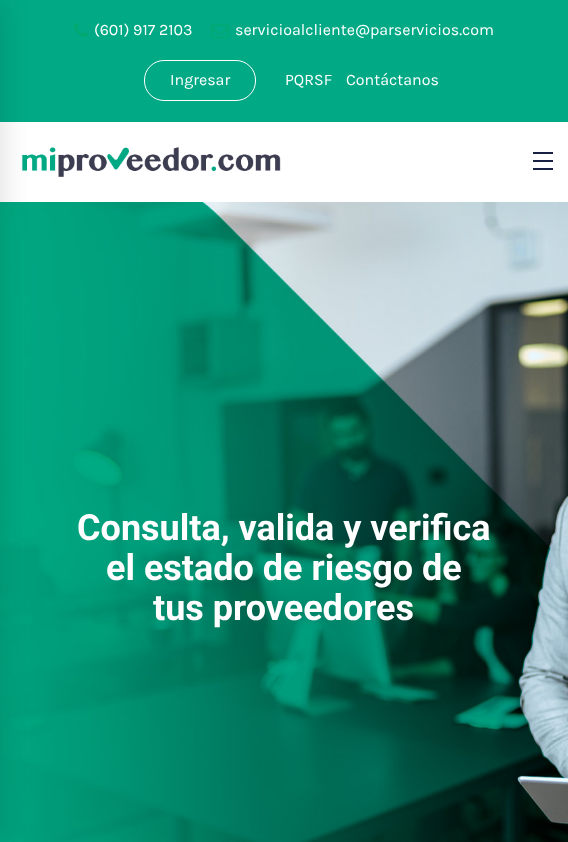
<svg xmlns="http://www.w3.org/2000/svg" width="568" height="842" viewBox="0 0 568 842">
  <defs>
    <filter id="blur1" x="-50%" y="-200%" width="200%" height="500%"><feGaussianBlur stdDeviation="14.5"/></filter>
  </defs>
  <rect width="100%" height="100%" fill="#ffffff"/>
  <rect x="0" y="0" width="568" height="122" fill="#01a985"/>
  <image x="21" y="146" width="260" height="31" href="img3.png"/>
  <image x="0" y="202" width="568" height="640" href="img4.png"/>
  <rect x="-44" y="1" width="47" height="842" fill="#000000" fill-opacity="0.12" filter="url(#blur1)"/>
  <image x="74" y="23" width="14" height="14" href="img1.png"/>
  <text x="94" y="35" font-family="Karla" font-size="16" fill="#ffffff">(601) 917 2103</text>
  <image x="211" y="24" width="18" height="15" href="img2.png"/>
  <text x="235" y="35" font-family="Karla" font-size="16" fill="#ffffff">servicioalcliente@parservicios.com</text>
  <rect x="144.5" y="60.5" width="111" height="40" rx="19.5" fill="none" stroke="#ffffff"/>
  <text x="170" y="85" font-family="Karla" font-size="16" fill="#ffffff">Ingresar</text>
  <text x="285" y="85" font-family="Karla" font-size="16" fill="#ffffff">PQRSF</text>
  <text x="346" y="85" font-family="Karla" font-size="16" fill="#ffffff">Contáctanos</text>
  <rect x="533" y="160" width="20" height="2" fill="#182141"/>
  <rect x="533" y="152" width="20" height="2" fill="#182141"/>
  <rect x="533" y="168" width="20" height="2" fill="#182141"/>
  <text x="77" y="540" font-family="Roboto" font-size="36" font-weight="bold" fill="#ffffff">Consulta, valida y verifica</text>
  <text x="106" y="580" font-family="Roboto" font-size="36" font-weight="bold" fill="#ffffff">el estado de riesgo de</text>
  <text x="153" y="620" font-family="Roboto" font-size="36" font-weight="bold" fill="#ffffff">tus proveedores</text>
</svg>
